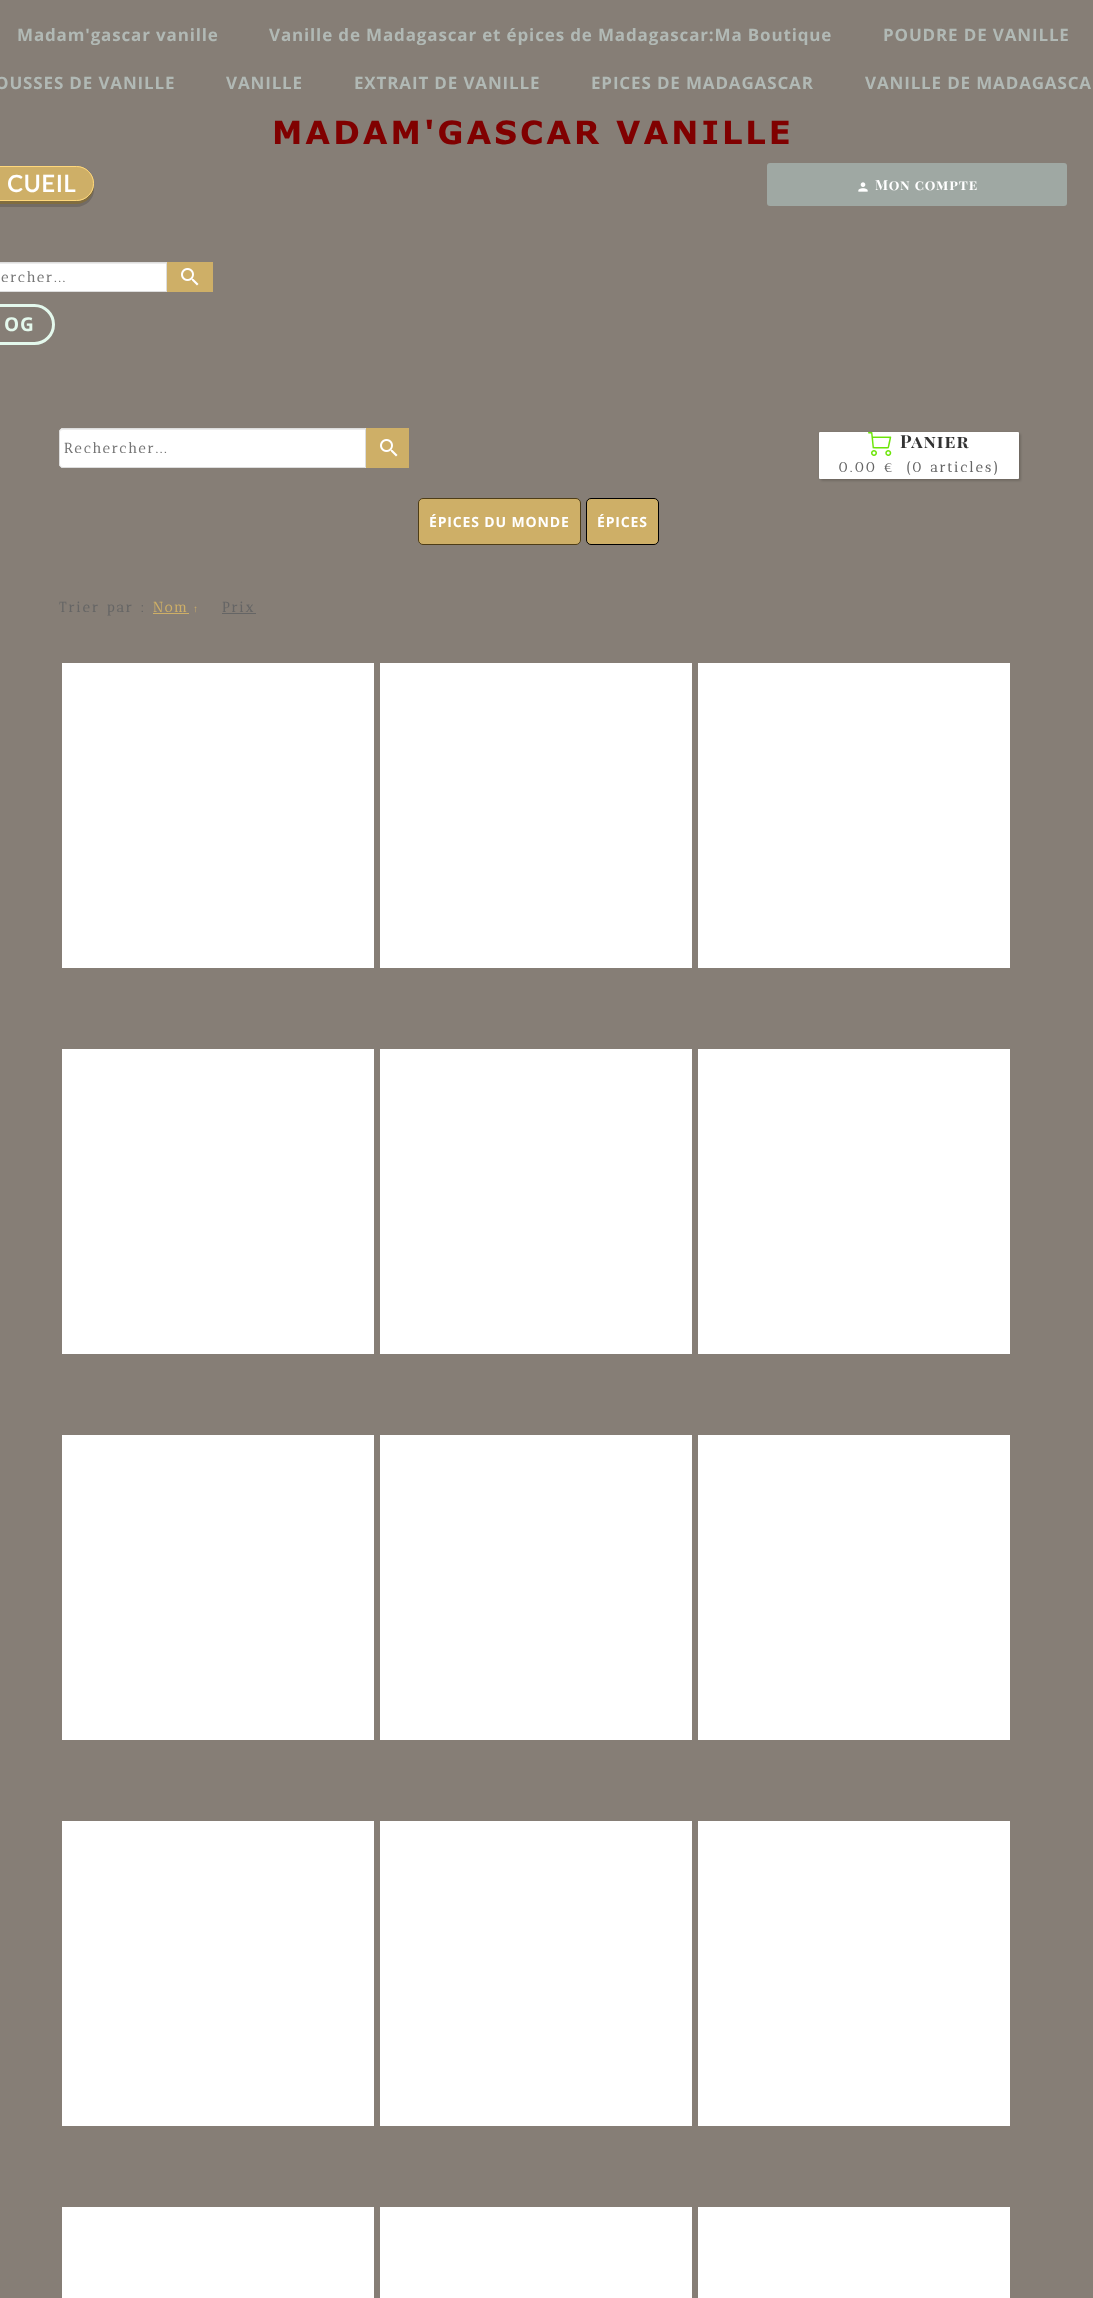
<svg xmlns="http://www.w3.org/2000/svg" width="1093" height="2298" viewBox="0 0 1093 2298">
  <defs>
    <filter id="blur1" x="-50%" y="-200%" width="200%" height="500%"><feGaussianBlur stdDeviation="1"/></filter>
  </defs>
  <rect width="100%" height="100%" fill="#867e76"/>
  <text x="17" y="41" font-family="Open Sans" font-size="17" font-weight="bold" letter-spacing="0.85" fill="#b1b9b5">Madam'gascar vanille</text>
  <text x="269" y="41" font-family="Open Sans" font-size="17" font-weight="bold" letter-spacing="0.85" fill="#b1b9b5">Vanille de Madagascar et épices de Madagascar:Ma Boutique</text>
  <text x="883" y="41" font-family="Open Sans" font-size="17" font-weight="bold" letter-spacing="0.85" fill="#b1b9b5">POUDRE DE VANILLE</text>
  <text x="-5" y="89" font-family="Open Sans" font-size="17" font-weight="bold" letter-spacing="0.85" fill="#b1b9b5">OUSSES DE VANILLE</text>
  <text x="226" y="89" font-family="Open Sans" font-size="17" font-weight="bold" letter-spacing="0.85" fill="#b1b9b5">VANILLE</text>
  <text x="354" y="89" font-family="Open Sans" font-size="17" font-weight="bold" letter-spacing="0.85" fill="#b1b9b5">EXTRAIT DE VANILLE</text>
  <text x="591" y="89" font-family="Open Sans" font-size="17" font-weight="bold" letter-spacing="0.85" fill="#b1b9b5">EPICES DE MADAGASCAR</text>
  <text x="865" y="89" font-family="Open Sans" font-size="17" font-weight="bold" letter-spacing="0.85" fill="#b1b9b5">VANILLE DE MADAGASCA</text>
  <text x="272" y="144" font-family="Verdana" font-size="32" font-weight="bold" letter-spacing="3" fill="#800000">MADAM'GASCAR VANILLE</text>
  <path d="M-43 186V190C-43 199-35 207-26 207H76C86 207 94 199 94 190V186C92 195 85 201 76 201H-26C-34 201-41 195-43 186Z" fill="#726b64"/>
  <path d="M-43 185V186C-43 196-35 204-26 204H76C86 204 94 196 94 186V185C93 194 86 201 76 201H-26C-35 201-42 194-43 185Z" fill="#816d3f"/>
  <rect x="-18.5" y="166.5" width="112" height="34" rx="17" fill="#ceaf67" stroke="#ceae64"/>
  <rect x="-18.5" y="166.5" width="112" height="34" rx="17" fill="none" stroke="#ffd87c"/>
  <text x="7" y="192" font-family="Lato" font-size="23" font-weight="bold" letter-spacing="0.85" fill="#ffffff">CUEIL</text>
  <rect x="767" y="163" width="300" height="43" rx="3" fill="#9fa8a3"/>
  <image x="858" y="182" width="10" height="10" href="img1.png"/>
  <text x="875" y="190" font-family="Playfair Display SC" font-size="14" font-weight="bold" letter-spacing="0.85" fill="#ffffff">Mon compte</text>
  <rect x="0" y="264" width="166" height="27" fill="#ffffff"/>
  <path d="M-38 264H166V263H-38C-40 263-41 265-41 267C-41 265-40 264-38 264Z" fill="#ececec"/>
  <rect x="-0.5" y="262.5" width="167" height="29" fill="none" stroke="#dddddd"/>
  <text x="1" y="282" font-family="Antic Didone" font-size="14" font-weight="bold" letter-spacing="2.25" fill="#757575">ercher...</text>
  <rect x="167" y="262" width="46" height="30" fill="#ceaf67"/>
  <image x="181" y="268" width="18" height="18" href="img2.png"/>
  <rect x="-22.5" y="305.5" width="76" height="38" rx="19" fill="none" stroke="#e4f9ed" stroke-width="3"/>
  <text x="4" y="331" font-family="Open Sans" font-size="19" font-weight="bold" letter-spacing="0.85" fill="#e4f9ed">OG</text>
  <path d="M63 428H366V468H63C61 468 59 466 59 464V432C59 430 61 428 63 428Z" fill="#ffffff"/>
  <path d="M63 430H365V429H63C61 429 60 431 60 433C60 431 61 430 63 430Z" fill="#ececec"/>
  <path d="M63 428.5H365.5V467.5H63C61 467.5 59.5 466 59.5 464V432C59.5 430 61 428.5 63 428.5Z" fill="none" stroke="#dddddd"/>
  <text x="64" y="453" font-family="Antic Didone" font-size="14" font-weight="bold" letter-spacing="2.25" fill="#757575">Rechercher...</text>
  <rect x="366" y="428" width="43" height="40" fill="#ceaf67"/>
  <image x="380" y="439" width="18" height="18" href="img2.png"/>
  <rect x="821" y="434" width="200" height="47" rx="1" fill="#000000" fill-opacity="0.15" filter="url(#blur1)"/>
  <rect x="819" y="432" width="200" height="47" rx="1" fill="#000000" fill-opacity="0.1" filter="url(#blur1)"/>
  <rect x="819" y="432" width="200" height="47" rx="1" fill="#ffffff"/>
  <image x="868" y="432" width="24" height="24" href="img3.png"/>
  <text x="900" y="448" font-family="Playfair Display SC" font-size="18" font-weight="bold" letter-spacing="1" fill="#333333">Panier</text>
  <text x="838" y="472" font-family="Antic Didone" font-size="14" font-weight="bold" letter-spacing="2.25" fill="#656565">0.00 €</text>
  <text x="906" y="472" font-family="Antic Didone" font-size="14" font-weight="bold" letter-spacing="2.25" fill="#656565">(0 articles)</text>
  <rect x="418.5" y="498.5" width="162" height="46" rx="4.5" fill="#ceaf67" stroke="#4e3d17"/>
  <text x="429" y="527" font-family="Open Sans" font-size="14" font-weight="bold" letter-spacing="0.85" fill="#ffffff">ÉPICES DU MONDE</text>
  <rect x="586.5" y="498.5" width="72" height="46" rx="4.5" fill="#ceaf67" stroke="#000000"/>
  <text x="597" y="527" font-family="Open Sans" font-size="14" font-weight="bold" letter-spacing="0.85" fill="#ffffff">ÉPICES</text>
  <text x="59" y="612" font-family="Antic Didone" font-size="14" font-weight="bold" letter-spacing="2.25" fill="#656565">Trier par :</text>
  <text x="153" y="612" font-family="Antic Didone" font-size="14" font-weight="bold" letter-spacing="2.25" fill="#ceaf67">Nom</text>
  <rect x="153" y="613" width="36" height="1" fill="#ceaf67"/>
  <text x="193" y="612" font-family="Liberation Serif" font-size="10" font-weight="bold" letter-spacing="2.25" fill="#ceaf67">↑</text>
  <text x="222" y="612" font-family="Antic Didone" font-size="14" font-weight="bold" letter-spacing="2.25" fill="#656565">Prix</text>
  <rect x="222" y="613" width="34" height="1" fill="#656565"/>
  <rect x="62" y="663" width="312" height="305" fill="#ffffff"/>
  <rect x="380" y="663" width="312" height="305" fill="#ffffff"/>
  <rect x="698" y="663" width="312" height="305" fill="#ffffff"/>
  <rect x="62" y="1049" width="312" height="305" fill="#ffffff"/>
  <rect x="380" y="1049" width="312" height="305" fill="#ffffff"/>
  <rect x="698" y="1049" width="312" height="305" fill="#ffffff"/>
  <rect x="62" y="1435" width="312" height="305" fill="#ffffff"/>
  <rect x="380" y="1435" width="312" height="305" fill="#ffffff"/>
  <rect x="698" y="1435" width="312" height="305" fill="#ffffff"/>
  <rect x="62" y="1821" width="312" height="305" fill="#ffffff"/>
  <rect x="380" y="1821" width="312" height="305" fill="#ffffff"/>
  <rect x="698" y="1821" width="312" height="305" fill="#ffffff"/>
  <rect x="62" y="2207" width="312" height="91" fill="#ffffff"/>
  <rect x="380" y="2207" width="312" height="91" fill="#ffffff"/>
  <rect x="698" y="2207" width="312" height="91" fill="#ffffff"/>
</svg>
